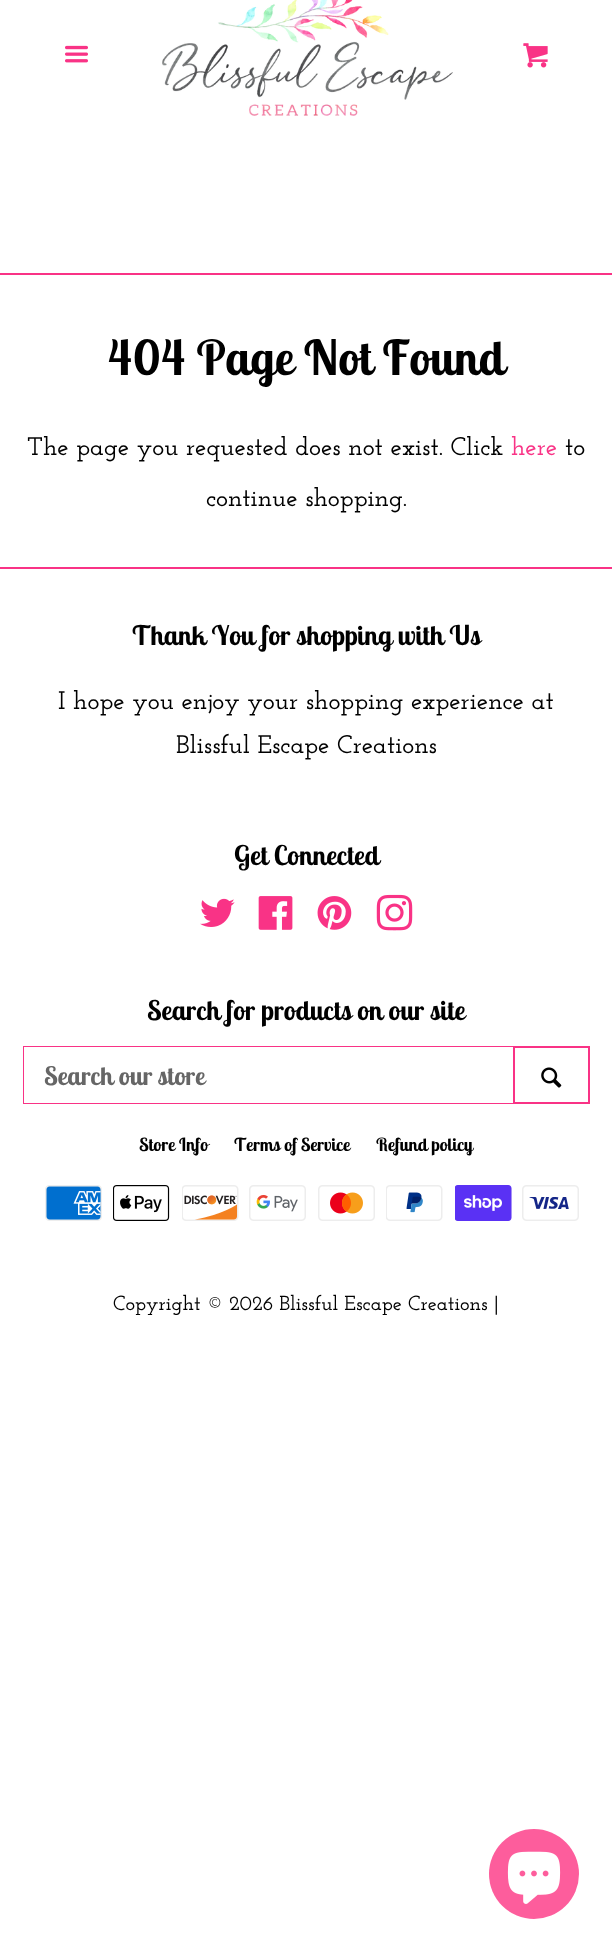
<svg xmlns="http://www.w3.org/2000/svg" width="612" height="1950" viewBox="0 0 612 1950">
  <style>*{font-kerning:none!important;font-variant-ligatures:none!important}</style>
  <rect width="100%" height="100%" fill="#ffffff"/>
  <rect x="0" y="273" width="612" height="2" fill="#f93386"/>
  <image x="65" y="45" width="23" height="18" href="img1.png"/>
  <image x="162" y="0" width="291" height="116" href="img2.png"/>
  <image x="523" y="43" width="25" height="25" href="img3.png"/>
  <text x="108" y="375" font-family="Lobster Two" font-size="48" font-weight="bold" fill="#000000">404 Page Not Found</text>
  <text x="27" y="455" font-family="Josefin Slab" font-size="25.5" font-weight="600" fill="#000000">The page you requested does not exist. Click</text>
  <text x="511" y="455" font-family="Josefin Slab" font-size="25.5" font-weight="600" fill="#f93386">here</text>
  <text x="565" y="455" font-family="Josefin Slab" font-size="25.5" font-weight="600" fill="#000000">to</text>
  <text x="206" y="506" font-family="Josefin Slab" font-size="25.5" font-weight="600" fill="#000000">continue shopping.</text>
  <rect x="0" y="567" width="612" height="2" fill="#f93386"/>
  <text x="132" y="645" font-family="Lobster Two" font-size="27" font-weight="bold" fill="#000000">Thank You</text>
  <text x="261" y="645" font-family="Lobster Two" font-size="27" font-weight="bold" fill="#000000">for shopping with Us</text>
  <text x="58" y="709" font-family="Josefin Slab" font-size="25.5" font-weight="600" fill="#000000">I hope you enjoy your shopping experience at</text>
  <text x="176" y="753" font-family="Josefin Slab" font-size="25.5" font-weight="600" fill="#000000">Blissful Escape Creations</text>
  <text x="234" y="865" font-family="Lobster Two" font-size="27" font-weight="bold" fill="#000000">Get Connected</text>
  <image x="200" y="898" width="35" height="29" href="img4.png"/>
  <image x="258" y="896" width="35" height="34" href="img5.png"/>
  <image x="317" y="896" width="35" height="34" href="img6.png"/>
  <image x="376" y="894" width="37" height="37" href="img7.png"/>
  <text x="147" y="1020" font-family="Lobster Two" font-size="27" font-weight="bold" fill="#000000">Search for products on our site</text>
  <rect x="24" y="1047" width="565" height="56" fill="none" stroke="#f93386" stroke-width="2"/>
  <rect x="24" y="1047" width="489" height="56" fill="#ffffff"/>
  <rect x="513" y="1047" width="2" height="56" fill="#f93386"/>
  <text x="44" y="1085" font-family="Lobster Two" font-size="25.5" font-weight="bold" fill="#666666">Search our store</text>
  <image x="541" y="1067" width="21" height="21" href="img8.png"/>
  <text x="139" y="1151" font-family="Lobster Two" font-size="18" font-weight="bold" fill="#000000">Store Info</text>
  <text x="234" y="1151" font-family="Lobster Two" font-size="18" font-weight="bold" fill="#000000">Terms of Service</text>
  <text x="376" y="1151" font-family="Lobster Two" font-size="18" font-weight="bold" fill="#000000">Refund policy</text>
  <image x="45" y="1185" width="57" height="36" href="img9.png"/>
  <image x="113" y="1185" width="57" height="36" href="img10.png"/>
  <image x="182" y="1185" width="57" height="36" href="img11.png"/>
  <image x="249" y="1185" width="57" height="36" href="img12.png"/>
  <image x="318" y="1185" width="57" height="36" href="img13.png"/>
  <image x="386" y="1185" width="57" height="36" href="img14.png"/>
  <image x="455" y="1185" width="57" height="36" href="img15.png"/>
  <image x="522" y="1185" width="57" height="36" href="img16.png"/>
  <text x="113" y="1310" font-family="Josefin Slab" font-size="20.4" font-weight="600" fill="#000000">Copyright © 2026 Blissful Escape Creations |</text>
  <circle cx="534" cy="1874" r="45" fill="#fd5d9c"/>
  <image x="507" y="1851" width="54" height="53" href="img17.png"/>
</svg>
